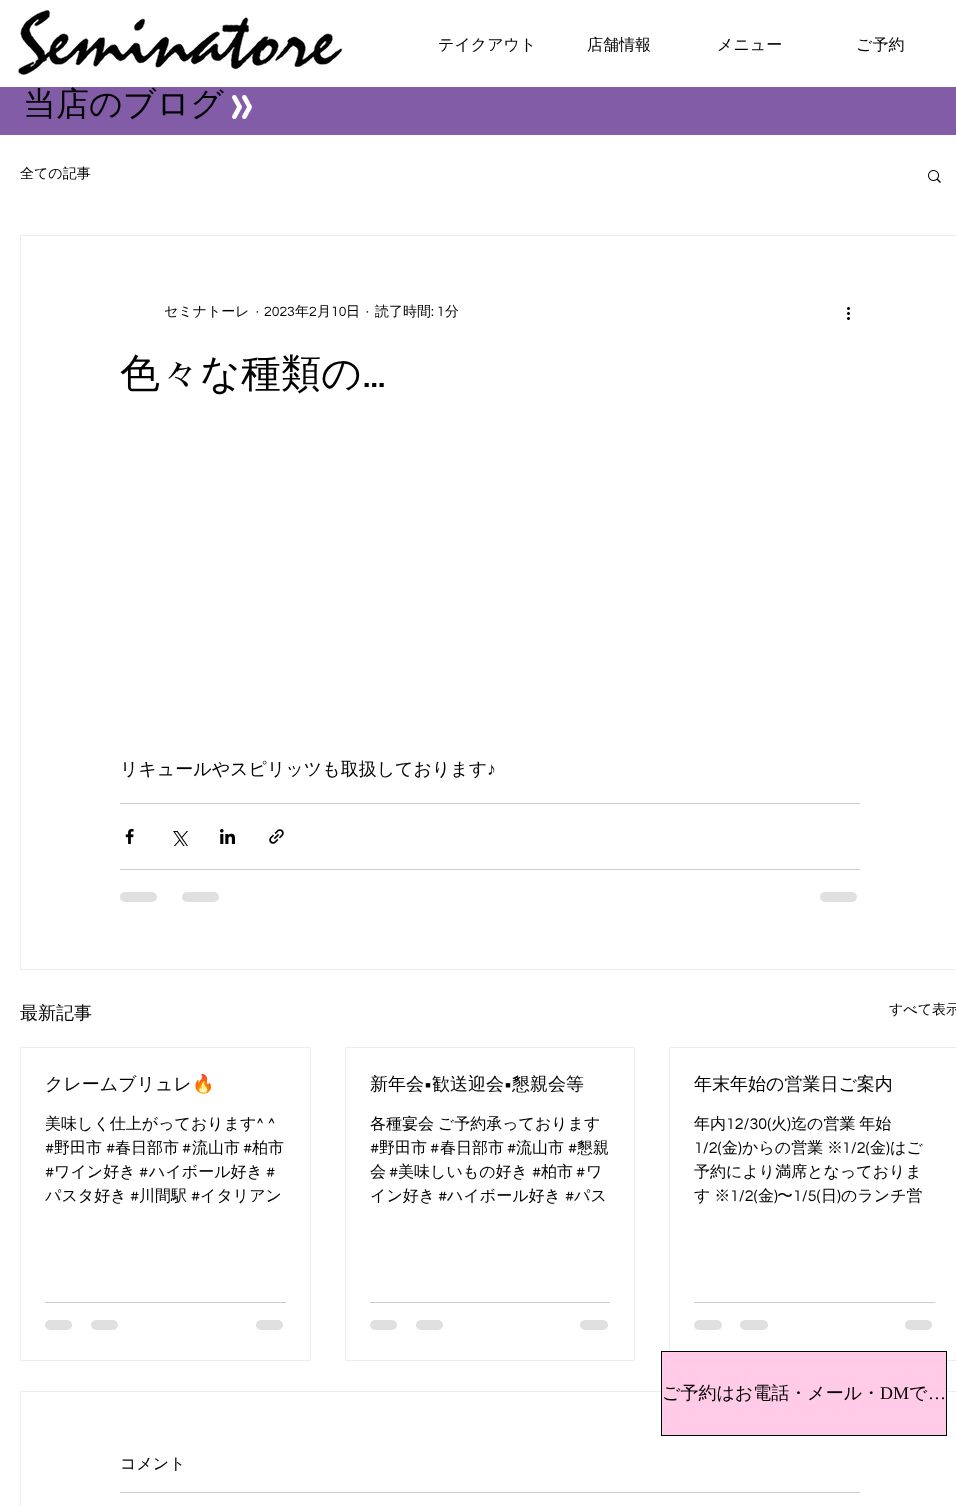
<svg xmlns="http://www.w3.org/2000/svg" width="956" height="1506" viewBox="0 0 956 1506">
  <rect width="100%" height="100%" fill="#825ca7"/>
  <rect x="0" y="0" width="956" height="87" fill="#ffffff"/>
  <image x="16" y="9" width="327" height="66" href="img1.png"/>
  <text x="438" y="50" font-family="WenQuanYi Zen Hei" font-size="16" font-weight="500" fill="#000000">テイクアウト</text>
  <text x="587" y="50" font-family="WenQuanYi Zen Hei" font-size="16" font-weight="500" fill="#000000">店舗情報</text>
  <text x="717" y="50" font-family="WenQuanYi Zen Hei" font-size="16" font-weight="500" fill="#000000">メニュー</text>
  <text x="856" y="50" font-family="WenQuanYi Zen Hei" font-size="16" font-weight="500" fill="#000000">ご予約</text>
  <text x="23" y="115" font-family="WenQuanYi Zen Hei" font-size="33" font-weight="500" fill="#000000">当店のブログ</text>
  <image x="232" y="94" width="10" height="26" href="img2.png"/>
  <image x="242" y="94" width="10" height="26" href="img2.png"/>
  <rect x="0" y="135" width="956" height="1371" fill="#ffffff"/>
  <text x="20" y="178" font-family="WenQuanYi Zen Hei" font-size="14" font-weight="500" fill="#000000">全ての記事</text>
  <image x="928" y="170" width="13" height="13" href="img3.png"/>
  <rect x="20.5" y="235.5" width="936" height="734" fill="none" stroke="#eeecec"/>
  <text x="164" y="316" font-family="WenQuanYi Zen Hei" font-size="14" font-weight="500" fill="#000000">セミナトーレ</text>
  <text x="256" y="316" font-family="Questrial" font-size="14" fill="#000000">·</text>
  <text x="264" y="316" font-family="Questrial" font-size="14" fill="#000000">2023</text>
  <text x="295" y="316" font-family="WenQuanYi Zen Hei" font-size="14" font-weight="500" fill="#000000">年</text>
  <text x="309" y="316" font-family="Questrial" font-size="14" fill="#000000">2</text>
  <text x="317" y="316" font-family="WenQuanYi Zen Hei" font-size="14" font-weight="500" fill="#000000">月</text>
  <text x="331" y="316" font-family="Questrial" font-size="14" fill="#000000">10</text>
  <text x="346" y="316" font-family="WenQuanYi Zen Hei" font-size="14" font-weight="500" fill="#000000">日</text>
  <text x="366" y="316" font-family="Questrial" font-size="14" fill="#000000">·</text>
  <text x="375" y="316" font-family="WenQuanYi Zen Hei" font-size="14" font-weight="500" fill="#000000">読了時間</text>
  <text x="431" y="316" font-family="Questrial" font-size="14" fill="#000000">: 1</text>
  <text x="445" y="316" font-family="WenQuanYi Zen Hei" font-size="14" font-weight="500" fill="#000000">分</text>
  <image x="847" y="307" width="3" height="13" href="img4.png"/>
  <text x="120" y="387" font-family="WenQuanYi Zen Hei" font-size="40" font-weight="500" fill="#000000">色々な種類の</text>
  <text x="362" y="387" font-family="Syne" font-size="40" fill="#000000">…</text>
  <text x="120" y="775" font-family="WenQuanYi Zen Hei" font-size="18" font-weight="500" fill="#000000">リキュールやスピリッツも取扱しております</text>
  <text x="487" y="775" font-family="Liberation Sans" font-size="18" fill="#000000">♪</text>
  <rect x="120" y="803" width="740" height="1" fill="#cccccc"/>
  <image x="125" y="829" width="9" height="15" href="img5.png"/>
  <image x="173" y="831" width="15" height="15" href="img6.png"/>
  <image x="220" y="829" width="15" height="15" href="img7.png"/>
  <image x="269" y="829" width="15" height="15" href="img8.png"/>
  <rect x="120" y="869" width="740" height="1" fill="#cccccc"/>
  <rect x="120" y="892" width="37" height="10" rx="5" fill="#e0e0e0"/>
  <rect x="182" y="892" width="37" height="10" rx="5" fill="#e0e0e0"/>
  <rect x="820" y="892" width="37" height="10" rx="5" fill="#e0e0e0"/>
  <text x="20" y="1019" font-family="WenQuanYi Zen Hei" font-size="18" font-weight="500" fill="#000000">最新記事</text>
  <text x="889" y="1014" font-family="WenQuanYi Zen Hei" font-size="14" font-weight="500" fill="#000000">すべて表示</text>
  <rect x="20.5" y="1047.5" width="290" height="313" fill="none" stroke="#eeecec"/>
  <text x="45" y="1090" font-family="WenQuanYi Zen Hei" font-size="18" font-weight="500" fill="#000000">クレームブリュレ</text>
  <text x="192" y="1090" font-family="Noto Color Emoji" font-size="18" fill="#000000">🔥</text>
  <text x="45" y="1129" font-family="WenQuanYi Zen Hei" font-size="16" font-weight="500" fill="#000000">美味しく仕上がっております</text>
  <text x="256" y="1129" font-family="Questrial" font-size="16" fill="#000000">^ ^</text>
  <text x="45" y="1153" font-family="Questrial" font-size="16" fill="#000000">#</text>
  <text x="54" y="1153" font-family="WenQuanYi Zen Hei" font-size="16" font-weight="500" fill="#000000">野田市</text>
  <text x="106" y="1153" font-family="Questrial" font-size="16" fill="#000000">#</text>
  <text x="115" y="1153" font-family="WenQuanYi Zen Hei" font-size="16" font-weight="500" fill="#000000">春日部市</text>
  <text x="182" y="1153" font-family="Questrial" font-size="16" fill="#000000">#</text>
  <text x="192" y="1153" font-family="WenQuanYi Zen Hei" font-size="16" font-weight="500" fill="#000000">流山市</text>
  <text x="243" y="1153" font-family="Questrial" font-size="16" fill="#000000">#</text>
  <text x="252" y="1153" font-family="WenQuanYi Zen Hei" font-size="16" font-weight="500" fill="#000000">柏市</text>
  <text x="45" y="1177" font-family="Questrial" font-size="16" fill="#000000">#</text>
  <text x="54" y="1177" font-family="WenQuanYi Zen Hei" font-size="16" font-weight="500" fill="#000000">ワイン好き</text>
  <text x="139" y="1177" font-family="Questrial" font-size="16" fill="#000000">#</text>
  <text x="149" y="1177" font-family="WenQuanYi Zen Hei" font-size="16" font-weight="500" fill="#000000">ハイボール好き</text>
  <text x="266" y="1177" font-family="Questrial" font-size="16" fill="#000000">#</text>
  <text x="45" y="1201" font-family="WenQuanYi Zen Hei" font-size="16" font-weight="500" fill="#000000">パスタ好き</text>
  <text x="130" y="1201" font-family="Questrial" font-size="16" fill="#000000">#</text>
  <text x="139" y="1201" font-family="WenQuanYi Zen Hei" font-size="16" font-weight="500" fill="#000000">川間駅</text>
  <text x="191" y="1201" font-family="Questrial" font-size="16" fill="#000000">#</text>
  <text x="200" y="1201" font-family="WenQuanYi Zen Hei" font-size="16" font-weight="500" fill="#000000">イタリアン</text>
  <rect x="45" y="1302" width="241" height="1" fill="#cccccc"/>
  <rect x="45" y="1320" width="27" height="10" rx="5" fill="#e0e0e0"/>
  <rect x="91" y="1320" width="27" height="10" rx="5" fill="#e0e0e0"/>
  <rect x="256" y="1320" width="27" height="10" rx="5" fill="#e0e0e0"/>
  <rect x="345.5" y="1047.5" width="289" height="313" fill="none" stroke="#eeecec"/>
  <text x="370" y="1090" font-family="WenQuanYi Zen Hei" font-size="18" font-weight="500" fill="#000000">新年会</text>
  <text x="424" y="1090" font-family="Syne" font-size="18" fill="#000000">•</text>
  <text x="432" y="1090" font-family="WenQuanYi Zen Hei" font-size="18" font-weight="500" fill="#000000">歓送迎会</text>
  <text x="504" y="1090" font-family="Syne" font-size="18" fill="#000000">•</text>
  <text x="512" y="1090" font-family="WenQuanYi Zen Hei" font-size="18" font-weight="500" fill="#000000">懇親会等</text>
  <text x="370" y="1129" word-spacing="-1" font-family="WenQuanYi Zen Hei" font-size="16" font-weight="500" fill="#000000">各種宴会 ご予約承っております</text>
  <text x="370" y="1153" font-family="Questrial" font-size="16" fill="#000000">#</text>
  <text x="379" y="1153" font-family="WenQuanYi Zen Hei" font-size="16" font-weight="500" fill="#000000">野田市</text>
  <text x="430" y="1153" font-family="Questrial" font-size="16" fill="#000000">#</text>
  <text x="440" y="1153" font-family="WenQuanYi Zen Hei" font-size="16" font-weight="500" fill="#000000">春日部市</text>
  <text x="507" y="1153" font-family="Questrial" font-size="16" fill="#000000">#</text>
  <text x="516" y="1153" font-family="WenQuanYi Zen Hei" font-size="16" font-weight="500" fill="#000000">流山市</text>
  <text x="568" y="1153" font-family="Questrial" font-size="16" fill="#000000">#</text>
  <text x="577" y="1153" font-family="WenQuanYi Zen Hei" font-size="16" font-weight="500" fill="#000000">懇親</text>
  <text x="370" y="1177" font-family="WenQuanYi Zen Hei" font-size="16" font-weight="500" fill="#000000">会</text>
  <text x="389" y="1177" font-family="Questrial" font-size="16" fill="#000000">#</text>
  <text x="398" y="1177" font-family="WenQuanYi Zen Hei" font-size="16" font-weight="500" fill="#000000">美味しいもの好き</text>
  <text x="532" y="1177" font-family="Questrial" font-size="16" fill="#000000">#</text>
  <text x="541" y="1177" font-family="WenQuanYi Zen Hei" font-size="16" font-weight="500" fill="#000000">柏市</text>
  <text x="576" y="1177" font-family="Questrial" font-size="16" fill="#000000">#</text>
  <text x="586" y="1177" font-family="WenQuanYi Zen Hei" font-size="16" font-weight="500" fill="#000000">ワ</text>
  <text x="370" y="1201" font-family="WenQuanYi Zen Hei" font-size="16" font-weight="500" fill="#000000">イン好き</text>
  <text x="438" y="1201" font-family="Questrial" font-size="16" fill="#000000">#</text>
  <text x="447" y="1201" font-family="WenQuanYi Zen Hei" font-size="16" font-weight="500" fill="#000000">ハイボール好き</text>
  <text x="565" y="1201" font-family="Questrial" font-size="16" fill="#000000">#</text>
  <text x="574" y="1201" font-family="WenQuanYi Zen Hei" font-size="16" font-weight="500" fill="#000000">パス</text>
  <rect x="370" y="1302" width="240" height="1" fill="#cccccc"/>
  <rect x="370" y="1320" width="27" height="10" rx="5" fill="#e0e0e0"/>
  <rect x="416" y="1320" width="27" height="10" rx="5" fill="#e0e0e0"/>
  <rect x="580" y="1320" width="28" height="10" rx="5" fill="#e0e0e0"/>
  <rect x="669.5" y="1047.5" width="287" height="313" fill="none" stroke="#eeecec"/>
  <text x="694" y="1090" font-family="WenQuanYi Zen Hei" font-size="18" font-weight="500" fill="#000000">年末年始の営業日ご案内</text>
  <text x="694" y="1129" font-family="WenQuanYi Zen Hei" font-size="16" font-weight="500" fill="#000000">年内</text>
  <text x="726" y="1129" font-family="Questrial" font-size="16" fill="#000000">12/30(</text>
  <text x="771" y="1129" font-family="WenQuanYi Zen Hei" font-size="16" font-weight="500" fill="#000000">火</text>
  <text x="787" y="1129" font-family="Questrial" font-size="16" fill="#000000">)</text>
  <text x="791" y="1129" word-spacing="-1" font-family="WenQuanYi Zen Hei" font-size="16" font-weight="500" fill="#000000">迄の営業 年始</text>
  <text x="694" y="1153" font-family="Questrial" font-size="16" fill="#000000">1/2(</text>
  <text x="722" y="1153" font-family="WenQuanYi Zen Hei" font-size="16" font-weight="500" fill="#000000">金</text>
  <text x="738" y="1153" font-family="Questrial" font-size="16" fill="#000000">)</text>
  <text x="742" y="1153" word-spacing="-1" font-family="WenQuanYi Zen Hei" font-size="16" font-weight="500" fill="#000000">からの営業 ※</text>
  <text x="842" y="1153" font-family="Questrial" font-size="16" fill="#000000">1/2(</text>
  <text x="870" y="1153" font-family="WenQuanYi Zen Hei" font-size="16" font-weight="500" fill="#000000">金</text>
  <text x="886" y="1153" font-family="Questrial" font-size="16" fill="#000000">)</text>
  <text x="890" y="1153" font-family="WenQuanYi Zen Hei" font-size="16" font-weight="500" fill="#000000">はご</text>
  <text x="694" y="1177" font-family="WenQuanYi Zen Hei" font-size="16" font-weight="500" fill="#000000">予約により満席となっておりま</text>
  <text x="694" y="1201" word-spacing="-1" font-family="WenQuanYi Zen Hei" font-size="16" font-weight="500" fill="#000000">す ※</text>
  <text x="730" y="1201" font-family="Questrial" font-size="16" fill="#000000">1/2(</text>
  <text x="758" y="1201" font-family="WenQuanYi Zen Hei" font-size="16" font-weight="500" fill="#000000">金</text>
  <text x="774" y="1201" font-family="Questrial" font-size="16" fill="#000000">)</text>
  <text x="777" y="1201" font-family="WenQuanYi Zen Hei" font-size="16" font-weight="500" fill="#000000">〜</text>
  <text x="793" y="1201" font-family="Questrial" font-size="16" fill="#000000">1/5(</text>
  <text x="821" y="1201" font-family="WenQuanYi Zen Hei" font-size="16" font-weight="500" fill="#000000">日</text>
  <text x="837" y="1201" font-family="Questrial" font-size="16" fill="#000000">)</text>
  <text x="841" y="1201" font-family="WenQuanYi Zen Hei" font-size="16" font-weight="500" fill="#000000">のランチ営</text>
  <rect x="694" y="1302" width="241" height="1" fill="#cccccc"/>
  <rect x="694" y="1320" width="28" height="10" rx="5" fill="#e0e0e0"/>
  <rect x="740" y="1320" width="28" height="10" rx="5" fill="#e0e0e0"/>
  <rect x="905" y="1320" width="27" height="10" rx="5" fill="#e0e0e0"/>
  <rect x="20.5" y="1391.5" width="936" height="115" fill="none" stroke="#eeecec"/>
  <text x="120" y="1469" font-family="WenQuanYi Zen Hei" font-size="16" font-weight="500" fill="#000000">コメント</text>
  <rect x="120" y="1492" width="740" height="1" fill="#cccccc"/>
  <rect x="661.5" y="1351.5" width="285" height="84" fill="#ffc4e4" fill-opacity="0.88" stroke="#000000"/>
  <text x="662" y="1399" font-family="WenQuanYi Zen Hei" font-size="18" font-weight="500" fill="#000000">ご予約はお電話・メール・</text>
  <text x="880" y="1399" font-family="Liberation Serif" font-size="18" fill="#000000">DM</text>
  <text x="909" y="1399" font-family="WenQuanYi Zen Hei" font-size="18" font-weight="500" fill="#000000">で</text>
  <text x="928" y="1399" font-family="Liberation Serif" font-size="18" fill="#000000">…</text>
</svg>
